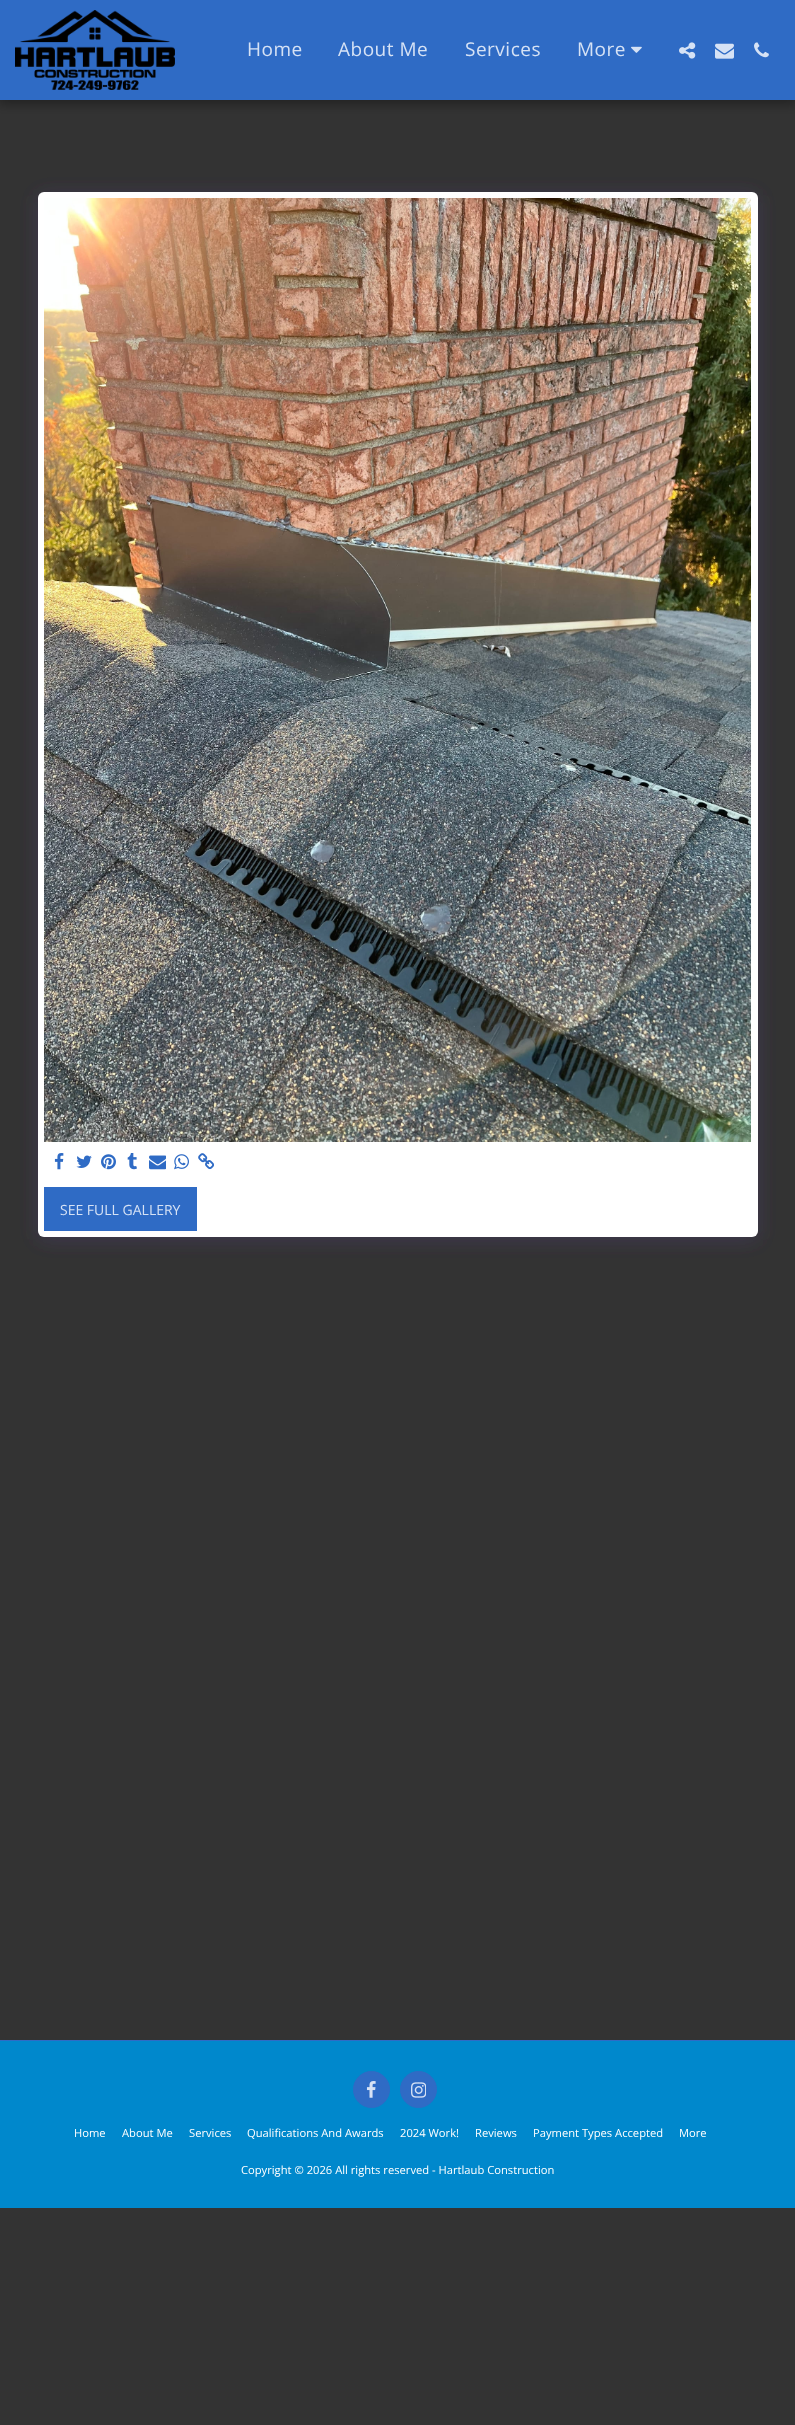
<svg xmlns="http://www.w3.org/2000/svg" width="795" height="2425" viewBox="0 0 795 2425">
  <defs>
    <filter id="blur1" x="-50%" y="-200%" width="200%" height="500%"><feGaussianBlur stdDeviation="6"/></filter>
    <filter id="blur2" x="-50%" y="-200%" width="200%" height="500%"><feGaussianBlur stdDeviation="10"/></filter>
  </defs>
  <rect width="100%" height="100%" fill="#333333"/>
  <rect x="-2" y="0" width="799" height="104" fill="#000000" fill-opacity="0.35" filter="url(#blur1)"/>
  <rect x="0" y="0" width="795" height="100" fill="#2f6bc5"/>
  <image x="15" y="10" width="160" height="80" href="img1.png"/>
  <text x="247" y="56" font-family="Open Sans" font-size="19" letter-spacing="0.5" fill="#d6e2f5">Home</text>
  <text x="338" y="56" font-family="Open Sans" font-size="19" letter-spacing="0.5" fill="#d6e2f5">About Me</text>
  <text x="465" y="56" font-family="Open Sans" font-size="19" letter-spacing="0.5" fill="#d6e2f5">Services</text>
  <text x="577" y="56" font-family="Open Sans" font-size="19" letter-spacing="0.5" fill="#d6e2f5">More</text>
  <image x="631" y="46" width="11" height="7" href="img2.png"/>
  <image x="679" y="42" width="17" height="17" href="img3.png"/>
  <image x="715" y="43" width="19" height="16" href="img4.png"/>
  <image x="754" y="42" width="15" height="16" href="img5.png"/>
  <rect x="38" y="195" width="720" height="1045" rx="6" fill="#4d3f7a" fill-opacity="0.4" filter="url(#blur2)"/>
  <rect x="38" y="192" width="720" height="1045" rx="6" fill="#ffffff"/>
  <image x="44" y="198" width="707" height="944" href="img6.png"/>
  <image x="54" y="1153" width="10" height="17" href="img7.png"/>
  <image x="76" y="1155" width="16" height="13" href="img8.png"/>
  <image x="101" y="1154" width="15" height="16" href="img9.png"/>
  <image x="127" y="1153" width="10" height="17" href="img10.png"/>
  <image x="149" y="1155" width="17" height="15" href="img11.png"/>
  <image x="174" y="1154" width="15" height="16" href="img12.png"/>
  <image x="198" y="1153" width="16" height="17" href="img13.png"/>
  <rect x="44" y="1187" width="153" height="44" fill="#2f6bc5"/>
  <text x="60" y="1215" font-family="Open Sans" font-size="14" fill="#d6e2f5">SEE FULL GALLERY</text>
  <rect x="0" y="2040" width="795" height="1" fill="#2f6bc5"/>
  <rect x="0" y="2041" width="795" height="167" fill="#0088cc"/>
  <circle cx="371.5" cy="2089.5" r="18" fill="#2f6bc5" stroke="#2f6bc5"/>
  <image x="366" y="2081" width="10" height="17" href="img14.png"/>
  <circle cx="418.5" cy="2089.5" r="18" fill="#2f6bc5" stroke="#2f6bc5"/>
  <image x="411" y="2082" width="15" height="16" href="img15.png"/>
  <text x="74" y="2137" font-family="Open Sans" font-size="11.2" fill="#ffffff">Home</text>
  <text x="122" y="2137" font-family="Open Sans" font-size="11.2" fill="#ffffff">About Me</text>
  <text x="189" y="2137" font-family="Open Sans" font-size="11.2" fill="#ffffff">Services</text>
  <text x="247" y="2137" font-family="Open Sans" font-size="11.2" fill="#ffffff">Qualifications And Awards</text>
  <text x="400" y="2137" font-family="Open Sans" font-size="11.2" fill="#ffffff">2024 Work!</text>
  <text x="475" y="2137" font-family="Open Sans" font-size="11.2" fill="#ffffff">Reviews</text>
  <text x="533" y="2137" font-family="Open Sans" font-size="11.2" fill="#ffffff">Payment Types Accepted</text>
  <text x="679" y="2137" font-family="Open Sans" font-size="11.2" fill="#ffffff">More</text>
  <text x="241" y="2174" font-family="Open Sans" font-size="11.2" fill="#ffffff">Copyright © 2026 All rights reserved - Hartlaub Construction</text>
</svg>
